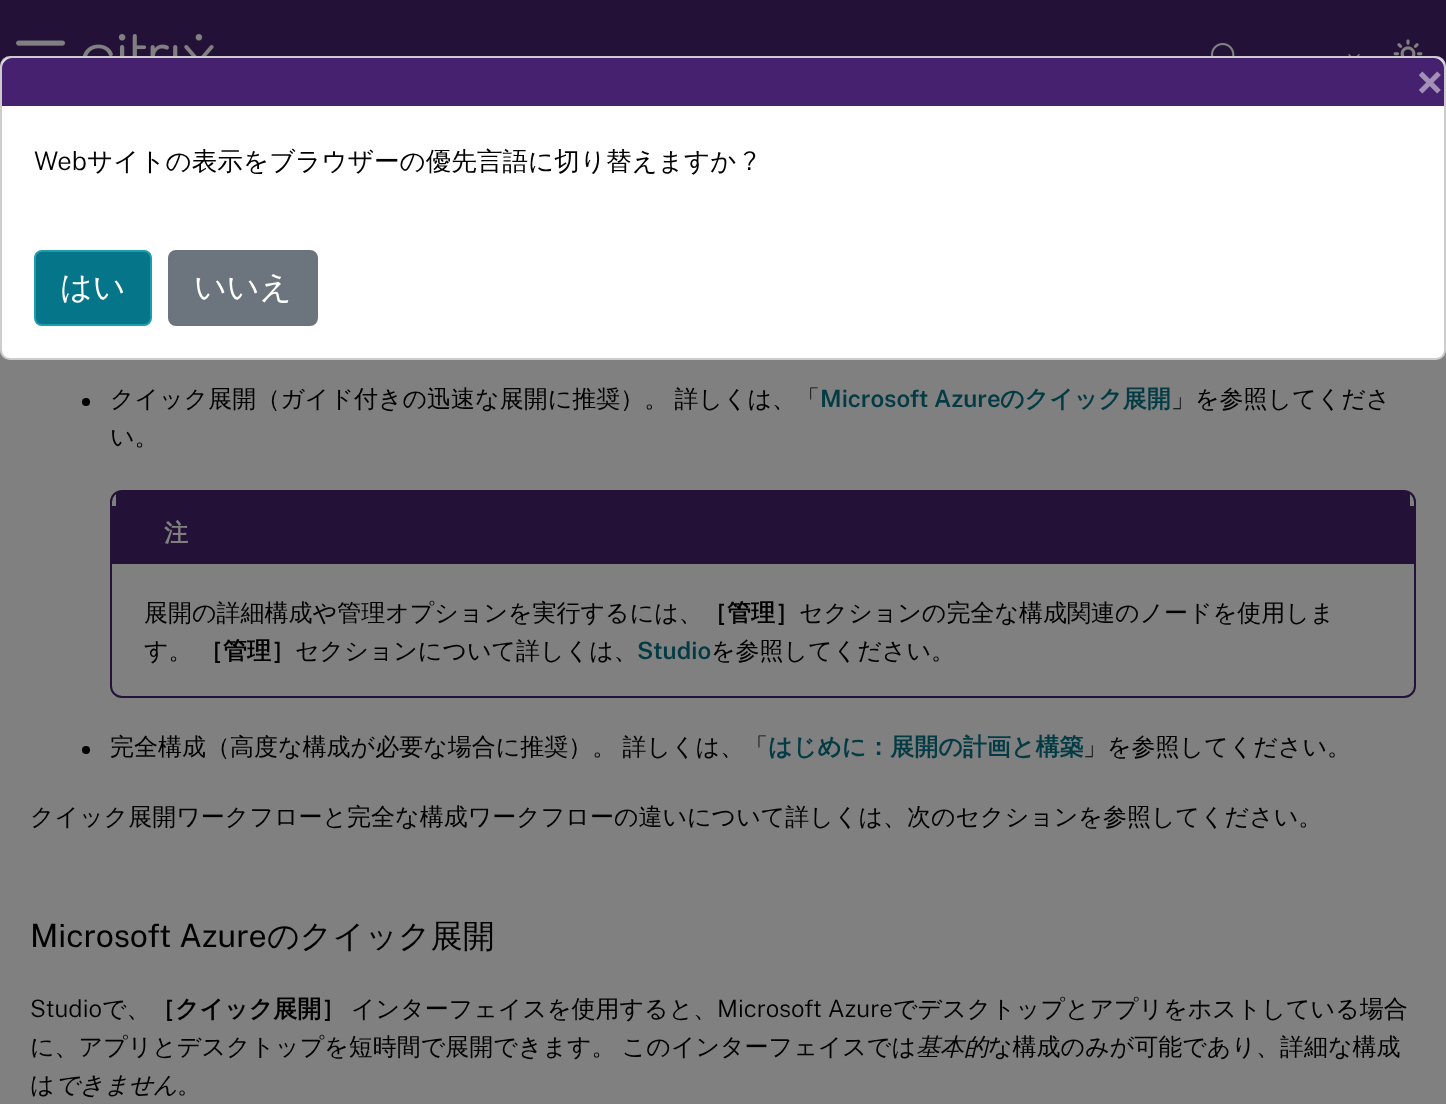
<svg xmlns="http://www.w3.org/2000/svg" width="1446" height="1104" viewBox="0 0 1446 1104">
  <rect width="100%" height="100%" fill="#808080"/>
  <rect x="0" y="0" width="1446" height="66" fill="#231138"/>
  <image x="16" y="40" width="49" height="6" href="img1.png"/>
  <image x="82" y="34" width="132" height="22" href="img2.png"/>
  <image x="1210" y="42" width="25" height="14" href="img3.png"/>
  <image x="1348" y="54" width="12" height="2" href="img4.png"/>
  <image x="1393" y="39" width="30" height="17" href="img5.png"/>
  <rect x="0" y="56" width="1446" height="304" rx="10" fill="#ffffff"/>
  <rect x="1" y="57" width="1444" height="302" rx="9" fill="none" stroke="#000000" stroke-opacity="0.2" stroke-width="2"/>
  <path d="M12 58H1434C1439.5 58 1444 62.5 1444 68V106H2V68C2 62.5 6.5 58 12 58Z" fill="#452170"/>
  <text x="1416" y="100" font-family="Public Sans" font-size="48" font-weight="bold" fill="#a290b8">×</text>
  <text x="34" y="170" font-family="Public Sans" font-size="25.6" font-weight="300" fill="#000000">Web</text>
  <text x="87" y="170" font-family="WenQuanYi Zen Hei" font-size="25.6" font-weight="500" fill="#000000">サイトの表示をブラウザーの優先言語に切り替えますか</text>
  <text x="743" y="170" font-family="Public Sans" font-size="25.6" font-weight="300" fill="#000000">?</text>
  <rect x="35" y="251" width="116" height="74" rx="7" fill="#05758a" stroke="#1c9cad" stroke-width="2"/>
  <text x="60" y="298" font-family="WenQuanYi Zen Hei" font-size="32" font-weight="500" fill="#ffffff">はい</text>
  <rect x="169" y="251" width="148" height="74" rx="7" fill="#6c757d" stroke="#6c757d" stroke-width="2"/>
  <text x="194" y="298" font-family="WenQuanYi Zen Hei" font-size="32" font-weight="500" fill="#ffffff">いいえ</text>
  <circle cx="86" cy="402" r="4" fill="#000000"/>
  <text x="110" y="407" word-spacing="-1" font-family="WenQuanYi Zen Hei" font-size="24" font-weight="500" fill="#000000">クイック展開（ガイド付きの迅速な展開に推奨）。 詳しくは、「</text>
  <text x="820" y="407" font-family="Public Sans" font-size="24" font-weight="600" fill="#033b45">Microsoft Azure</text>
  <text x="1000" y="407" font-family="WenQuanYi Zen Hei" font-size="24" font-weight="bold" fill="#033b45">のクイック展開</text>
  <text x="1171" y="407" font-family="WenQuanYi Zen Hei" font-size="24" font-weight="500" fill="#000000">」を参照してくださ</text>
  <text x="110" y="445" font-family="WenQuanYi Zen Hei" font-size="24" font-weight="500" fill="#000000">い。</text>
  <rect x="111" y="491" width="1304" height="206" rx="11" fill="none" stroke="#231138" stroke-width="2"/>
  <rect x="116" y="492" width="1294" height="14" fill="#231138"/>
  <rect x="112" y="506" width="1302" height="58" fill="#231138"/>
  <text x="164" y="541" font-family="WenQuanYi Zen Hei" font-size="24" font-weight="bold" letter-spacing="2" fill="#808080">注</text>
  <text x="144" y="621" font-family="WenQuanYi Zen Hei" font-size="24" font-weight="500" fill="#000000">展開の詳細構成や管理オプションを実行するには、</text>
  <text x="703" y="621" font-family="WenQuanYi Zen Hei" font-size="24" font-weight="bold" fill="#000000">［管理］</text>
  <text x="799" y="621" font-family="WenQuanYi Zen Hei" font-size="24" font-weight="500" fill="#000000">セクションの完全な構成関連のノードを使用しま</text>
  <text x="144" y="659" font-family="WenQuanYi Zen Hei" font-size="24" font-weight="500" fill="#000000">す。</text>
  <text x="199" y="659" font-family="WenQuanYi Zen Hei" font-size="24" font-weight="bold" fill="#000000">［管理］</text>
  <text x="295" y="659" font-family="WenQuanYi Zen Hei" font-size="24" font-weight="500" fill="#000000">セクションについて詳しくは、</text>
  <text x="637" y="659" font-family="Public Sans" font-size="24" font-weight="600" fill="#033b45">Studio</text>
  <text x="711" y="659" font-family="WenQuanYi Zen Hei" font-size="24" font-weight="500" fill="#000000">を参照してください。</text>
  <circle cx="86" cy="750" r="4" fill="#000000"/>
  <text x="110" y="755" word-spacing="-1" font-family="WenQuanYi Zen Hei" font-size="24" font-weight="500" fill="#000000">完全構成（高度な構成が必要な場合に推奨）。 詳しくは、「</text>
  <text x="768" y="755" font-family="WenQuanYi Zen Hei" font-size="24" font-weight="bold" fill="#033b45">はじめに：展開の計画と構築</text>
  <text x="1083" y="755" font-family="WenQuanYi Zen Hei" font-size="24" font-weight="500" fill="#000000">」を参照してください。</text>
  <text x="30" y="825" font-family="WenQuanYi Zen Hei" font-size="24" font-weight="500" fill="#000000">クイック展開ワークフローと完全な構成ワークフローの違いについて詳しくは、次のセクションを参照してください。</text>
  <text x="30" y="947" font-family="Public Sans" font-size="32" fill="#000000">Microsoft Azure</text>
  <text x="267" y="947" font-family="WenQuanYi Zen Hei" font-size="32" font-weight="500" fill="#000000">のクイック展開</text>
  <text x="30" y="1017" font-family="Public Sans" font-size="24" font-weight="300" fill="#000000">Studio</text>
  <text x="102" y="1017" font-family="WenQuanYi Zen Hei" font-size="24" font-weight="500" fill="#000000">で、</text>
  <text x="151" y="1017" font-family="WenQuanYi Zen Hei" font-size="24" font-weight="bold" fill="#000000">［クイック展開］</text>
  <text x="351" y="1017" font-family="WenQuanYi Zen Hei" font-size="24" font-weight="500" fill="#000000">インターフェイスを使用すると、</text>
  <text x="717" y="1017" font-family="Public Sans" font-size="24" font-weight="300" fill="#000000">Microsoft Azure</text>
  <text x="893" y="1017" font-family="WenQuanYi Zen Hei" font-size="24" font-weight="500" fill="#000000">でデスクトップとアプリをホストしている場合</text>
  <text x="30" y="1055" word-spacing="-1" font-family="WenQuanYi Zen Hei" font-size="24" font-weight="500" fill="#000000">に、アプリとデスクトップを短時間で展開できます。 このインターフェイスでは</text>
  <text x="916" y="1055" font-family="WenQuanYi Zen Hei" font-size="24" font-weight="500" font-style="italic" fill="#000000">基本的</text>
  <text x="988" y="1055" font-family="WenQuanYi Zen Hei" font-size="24" font-weight="500" fill="#000000">な構成のみが可能であり、詳細な構成</text>
  <text x="30" y="1093" font-family="WenQuanYi Zen Hei" font-size="24" font-weight="500" fill="#000000">は</text>
  <text x="55" y="1093" font-family="WenQuanYi Zen Hei" font-size="24" font-weight="500" font-style="italic" fill="#000000">できません</text>
  <text x="177" y="1093" font-family="WenQuanYi Zen Hei" font-size="24" font-weight="500" fill="#000000">。</text>
</svg>
